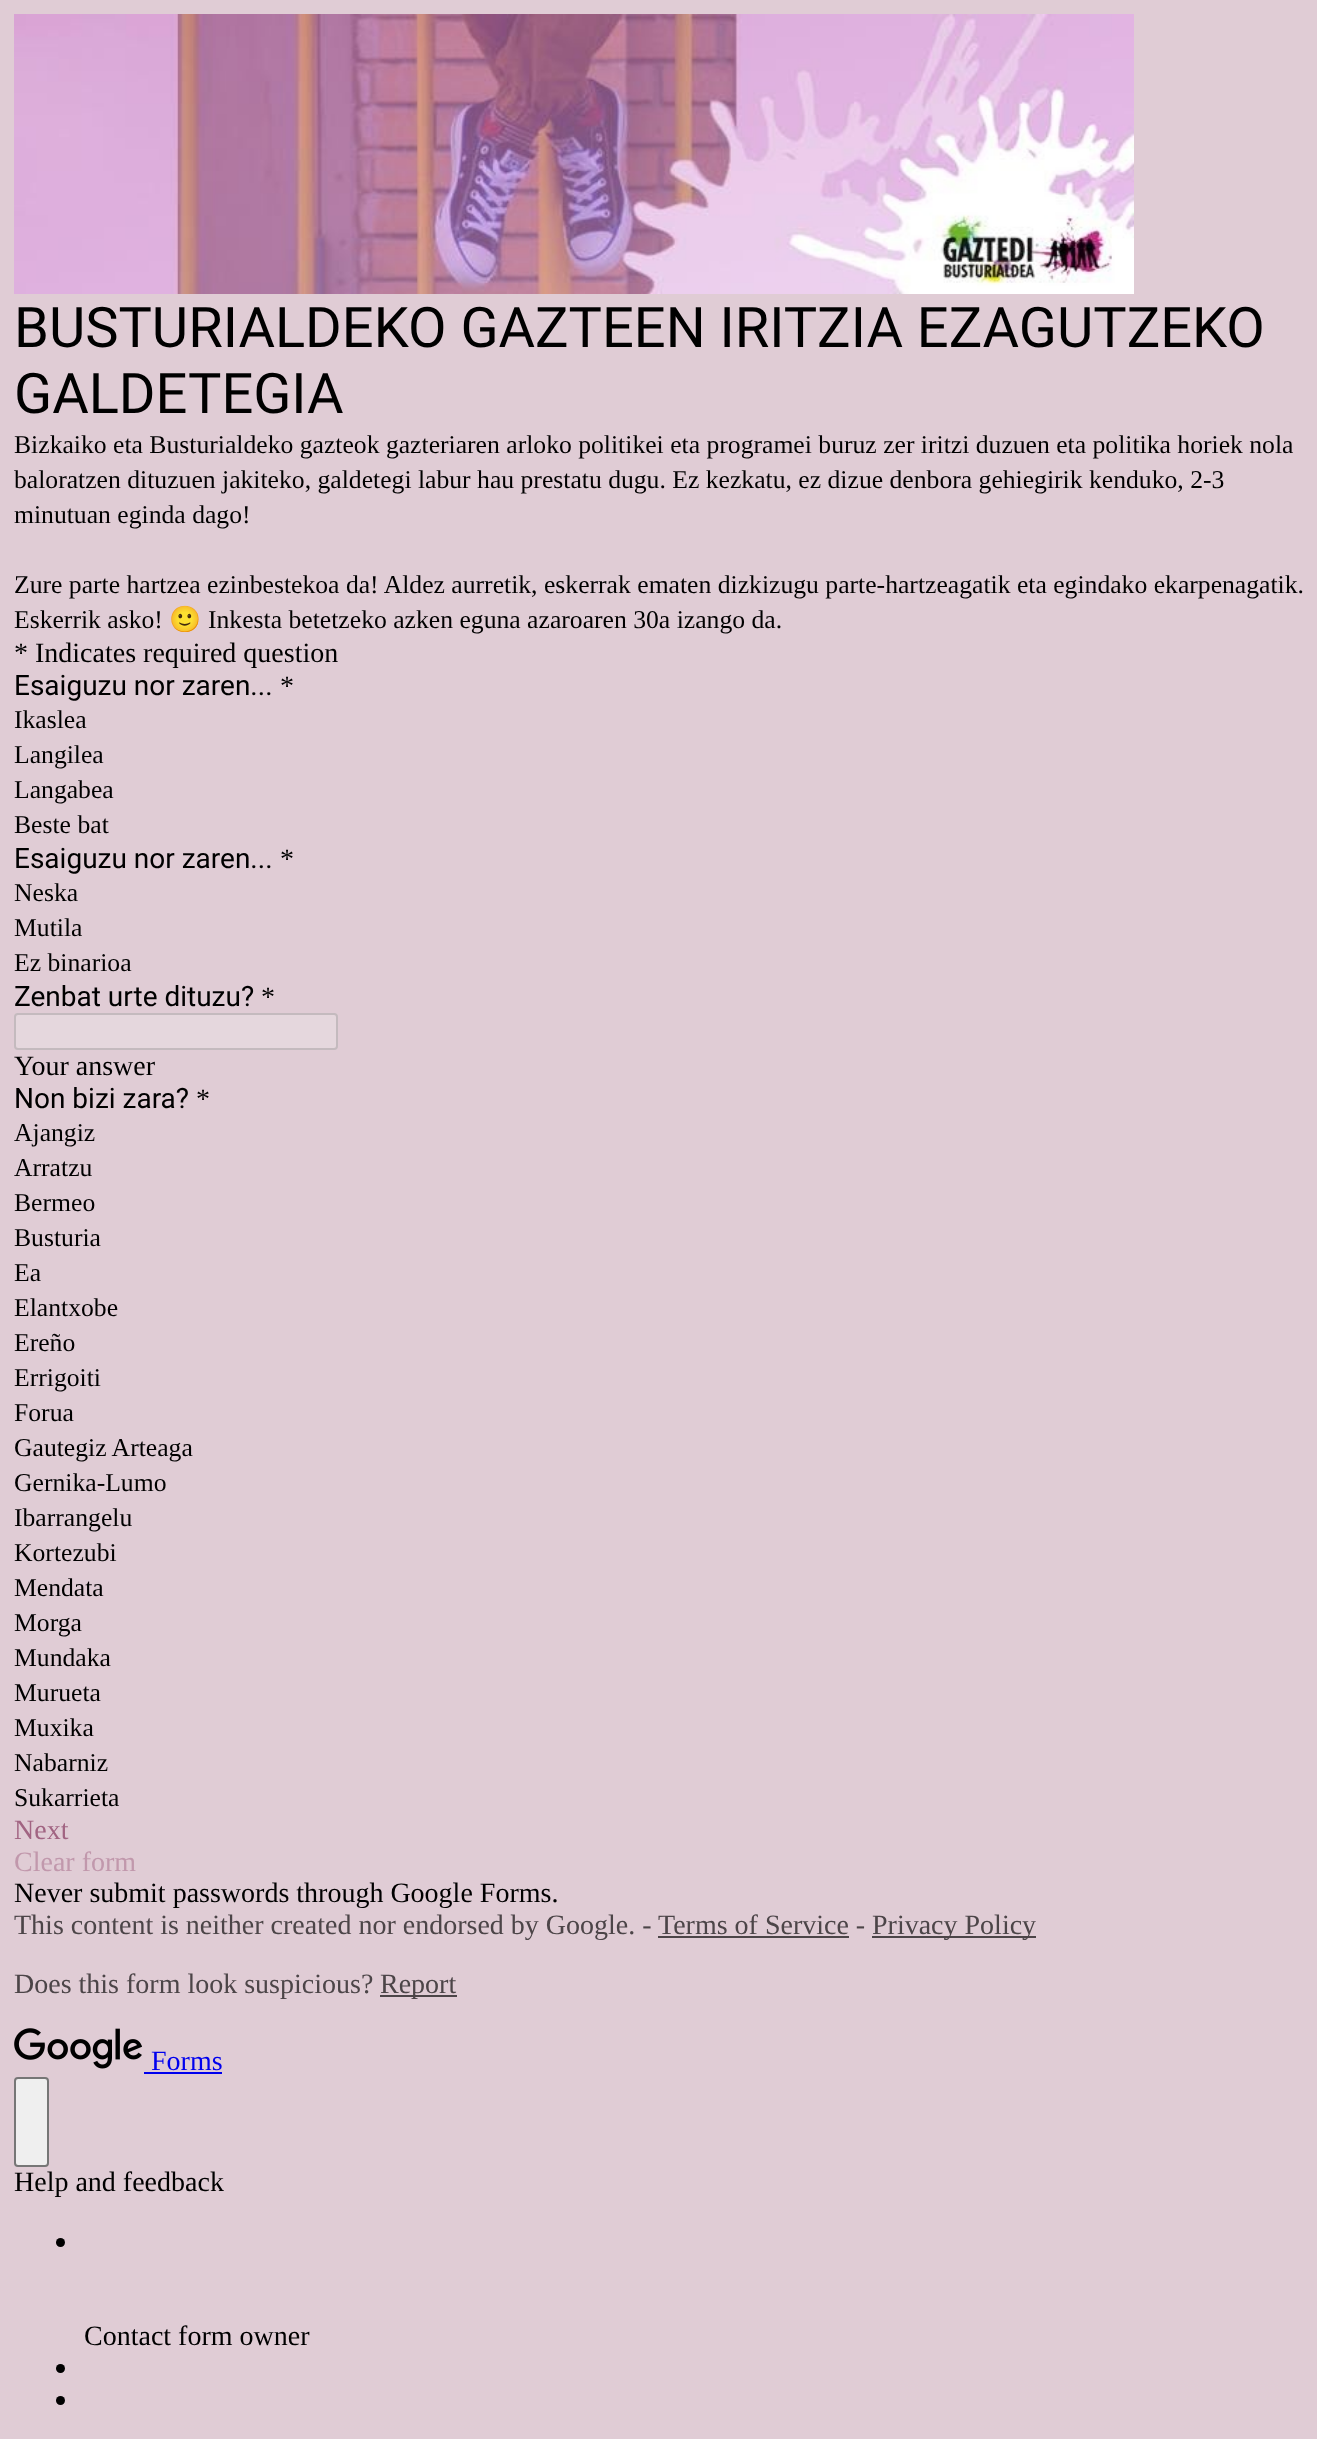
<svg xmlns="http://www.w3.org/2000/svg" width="1317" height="2439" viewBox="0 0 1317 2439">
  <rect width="100%" height="100%" fill="#e0ccd5"/>
  <image x="14" y="14" width="1120" height="280" href="img1.png"/>
  <text x="14" y="347" font-family="Roboto" font-size="56" fill="#000000">BUSTURIALDEKO GAZTEEN IRITZIA EZAGUTZEKO</text>
  <text x="14" y="413" font-family="Roboto" font-size="56" fill="#000000">GALDETEGIA</text>
  <text x="14" y="453" font-family="Liberation Serif" font-size="25.67" fill="#000000">Bizkaiko eta Busturialdeko gazteok gazteriaren arloko politikei eta programei buruz zer iritzi duzuen eta politika horiek nola</text>
  <text x="14" y="488" font-family="Liberation Serif" font-size="25.67" fill="#000000">baloratzen dituzuen jakiteko, galdetegi labur hau prestatu dugu. Ez kezkatu, ez dizue denbora gehiegirik kenduko, 2-3</text>
  <text x="14" y="523" font-family="Liberation Serif" font-size="25.67" fill="#000000">minutuan eginda dago!</text>
  <text x="14" y="593" font-family="Liberation Serif" font-size="25.67" fill="#000000">Zure parte hartzea ezinbestekoa da! Aldez aurretik, eskerrak ematen dizkizugu parte-hartzeagatik eta egindako ekarpenagatik.</text>
  <text x="14" y="628" font-family="Liberation Serif" font-size="25.67" fill="#000000">Eskerrik asko!</text>
  <text x="169" y="628" font-family="Noto Color Emoji" font-size="25.67" fill="#000000">🙂</text>
  <text x="208" y="628" font-family="Liberation Serif" font-size="25.67" fill="#000000">Inkesta betetzeko azken eguna azaroaren 30a izango da.</text>
  <text x="14" y="662" font-family="Liberation Serif" font-size="28" fill="#000000">* Indicates required question</text>
  <text x="14" y="695" font-family="Roboto" font-size="28" fill="#000000">Esaiguzu nor zaren...</text>
  <text x="280" y="695" font-family="Liberation Serif" font-size="28" fill="#000000">*</text>
  <text x="14" y="728" font-family="Liberation Serif" font-size="25.67" fill="#000000">Ikaslea</text>
  <text x="14" y="763" font-family="Liberation Serif" font-size="25.67" fill="#000000">Langilea</text>
  <text x="14" y="798" font-family="Liberation Serif" font-size="25.67" fill="#000000">Langabea</text>
  <text x="14" y="833" font-family="Liberation Serif" font-size="25.67" fill="#000000">Beste bat</text>
  <text x="14" y="868" font-family="Roboto" font-size="28" fill="#000000">Esaiguzu nor zaren...</text>
  <text x="280" y="868" font-family="Liberation Serif" font-size="28" fill="#000000">*</text>
  <text x="14" y="901" font-family="Liberation Serif" font-size="25.67" fill="#000000">Neska</text>
  <text x="14" y="936" font-family="Liberation Serif" font-size="25.67" fill="#000000">Mutila</text>
  <text x="14" y="971" font-family="Liberation Serif" font-size="25.67" fill="#000000">Ez binarioa</text>
  <text x="14" y="1006" font-family="Roboto" font-size="28" fill="#000000">Zenbat urte dituzu?</text>
  <text x="261" y="1006" font-family="Liberation Serif" font-size="28" fill="#000000">*</text>
  <rect x="14" y="1013" width="324" height="37" rx="4" fill="#e5d7dd"/>
  <rect x="15" y="1014" width="322" height="35" rx="3" fill="none" stroke="#767676" stroke-opacity="0.3" stroke-width="2"/>
  <text x="14" y="1075" font-family="Liberation Serif" font-size="28" fill="#000000">Your answer</text>
  <text x="14" y="1108" font-family="Roboto" font-size="28" fill="#000000">Non bizi zara?</text>
  <text x="196" y="1108" font-family="Liberation Serif" font-size="28" fill="#000000">*</text>
  <text x="14" y="1141" font-family="Liberation Serif" font-size="25.67" fill="#000000">Ajangiz</text>
  <text x="14" y="1176" font-family="Liberation Serif" font-size="25.67" fill="#000000">Arratzu</text>
  <text x="14" y="1211" font-family="Liberation Serif" font-size="25.67" fill="#000000">Bermeo</text>
  <text x="14" y="1246" font-family="Liberation Serif" font-size="25.67" fill="#000000">Busturia</text>
  <text x="14" y="1281" font-family="Liberation Serif" font-size="25.67" fill="#000000">Ea</text>
  <text x="14" y="1316" font-family="Liberation Serif" font-size="25.67" fill="#000000">Elantxobe</text>
  <text x="14" y="1351" font-family="Liberation Serif" font-size="25.67" fill="#000000">Ereño</text>
  <text x="14" y="1386" font-family="Liberation Serif" font-size="25.67" fill="#000000">Errigoiti</text>
  <text x="14" y="1421" font-family="Liberation Serif" font-size="25.67" fill="#000000">Forua</text>
  <text x="14" y="1456" font-family="Liberation Serif" font-size="25.67" fill="#000000">Gautegiz Arteaga</text>
  <text x="14" y="1491" font-family="Liberation Serif" font-size="25.67" fill="#000000">Gernika-Lumo</text>
  <text x="14" y="1526" font-family="Liberation Serif" font-size="25.67" fill="#000000">Ibarrangelu</text>
  <text x="14" y="1561" font-family="Liberation Serif" font-size="25.67" fill="#000000">Kortezubi</text>
  <text x="14" y="1596" font-family="Liberation Serif" font-size="25.67" fill="#000000">Mendata</text>
  <text x="14" y="1631" font-family="Liberation Serif" font-size="25.67" fill="#000000">Morga</text>
  <text x="14" y="1666" font-family="Liberation Serif" font-size="25.67" fill="#000000">Mundaka</text>
  <text x="14" y="1701" font-family="Liberation Serif" font-size="25.67" fill="#000000">Murueta</text>
  <text x="14" y="1736" font-family="Liberation Serif" font-size="25.67" fill="#000000">Muxika</text>
  <text x="14" y="1771" font-family="Liberation Serif" font-size="25.67" fill="#000000">Nabarniz</text>
  <text x="14" y="1806" font-family="Liberation Serif" font-size="25.67" fill="#000000">Sukarrieta</text>
  <text x="14" y="1839" font-family="Liberation Serif" font-size="28" fill="#a16482">Next</text>
  <text x="14" y="1871" font-family="Liberation Serif" font-size="28" fill="#c198ac">Clear form</text>
  <text x="14" y="1902" font-family="Liberation Serif" font-size="28" fill="#000000">Never submit passwords through Google Forms.</text>
  <text x="14" y="1934" font-family="Liberation Serif" font-size="28" fill="#4c4548">This content is neither created nor endorsed by Google. -</text>
  <text x="658" y="1934" font-family="Liberation Serif" font-size="28" fill="#4c4548">Terms of Service -</text>
  <rect x="658" y="1936" width="191" height="2" fill="#4c4548"/>
  <rect x="872" y="1936" width="164" height="2" fill="#4c4548"/>
  <text x="872" y="1934" font-family="Liberation Serif" font-size="28" fill="#4c4548">Privacy Policy</text>
  <text x="14" y="1993" font-family="Liberation Serif" font-size="28" fill="#4c4548">Does this form look suspicious?</text>
  <rect x="380" y="1995" width="77" height="2" fill="#4c4548"/>
  <text x="380" y="1993" font-family="Liberation Serif" font-size="28" fill="#4c4548">Report</text>
  <image x="14" y="2028" width="128" height="41" href="img2.png"/>
  <text x="151" y="2070" font-family="Liberation Serif" font-size="28" fill="#0000ee">Forms</text>
  <rect x="144" y="2072" width="78" height="2" fill="#0000ee"/>
  <rect x="15" y="2078" width="33" height="88" rx="3" fill="#efefef" stroke="#767676" stroke-width="2"/>
  <text x="14" y="2191" font-family="Liberation Serif" font-size="28" fill="#000000">Help and feedback</text>
  <circle cx="60.5" cy="2242.5" r="4.5" fill="#000000"/>
  <text x="84" y="2345" font-family="Liberation Serif" font-size="28" fill="#000000">Contact form owner</text>
  <circle cx="60.5" cy="2368.5" r="4.5" fill="#000000"/>
  <circle cx="60.5" cy="2400.5" r="4.5" fill="#000000"/>
</svg>
